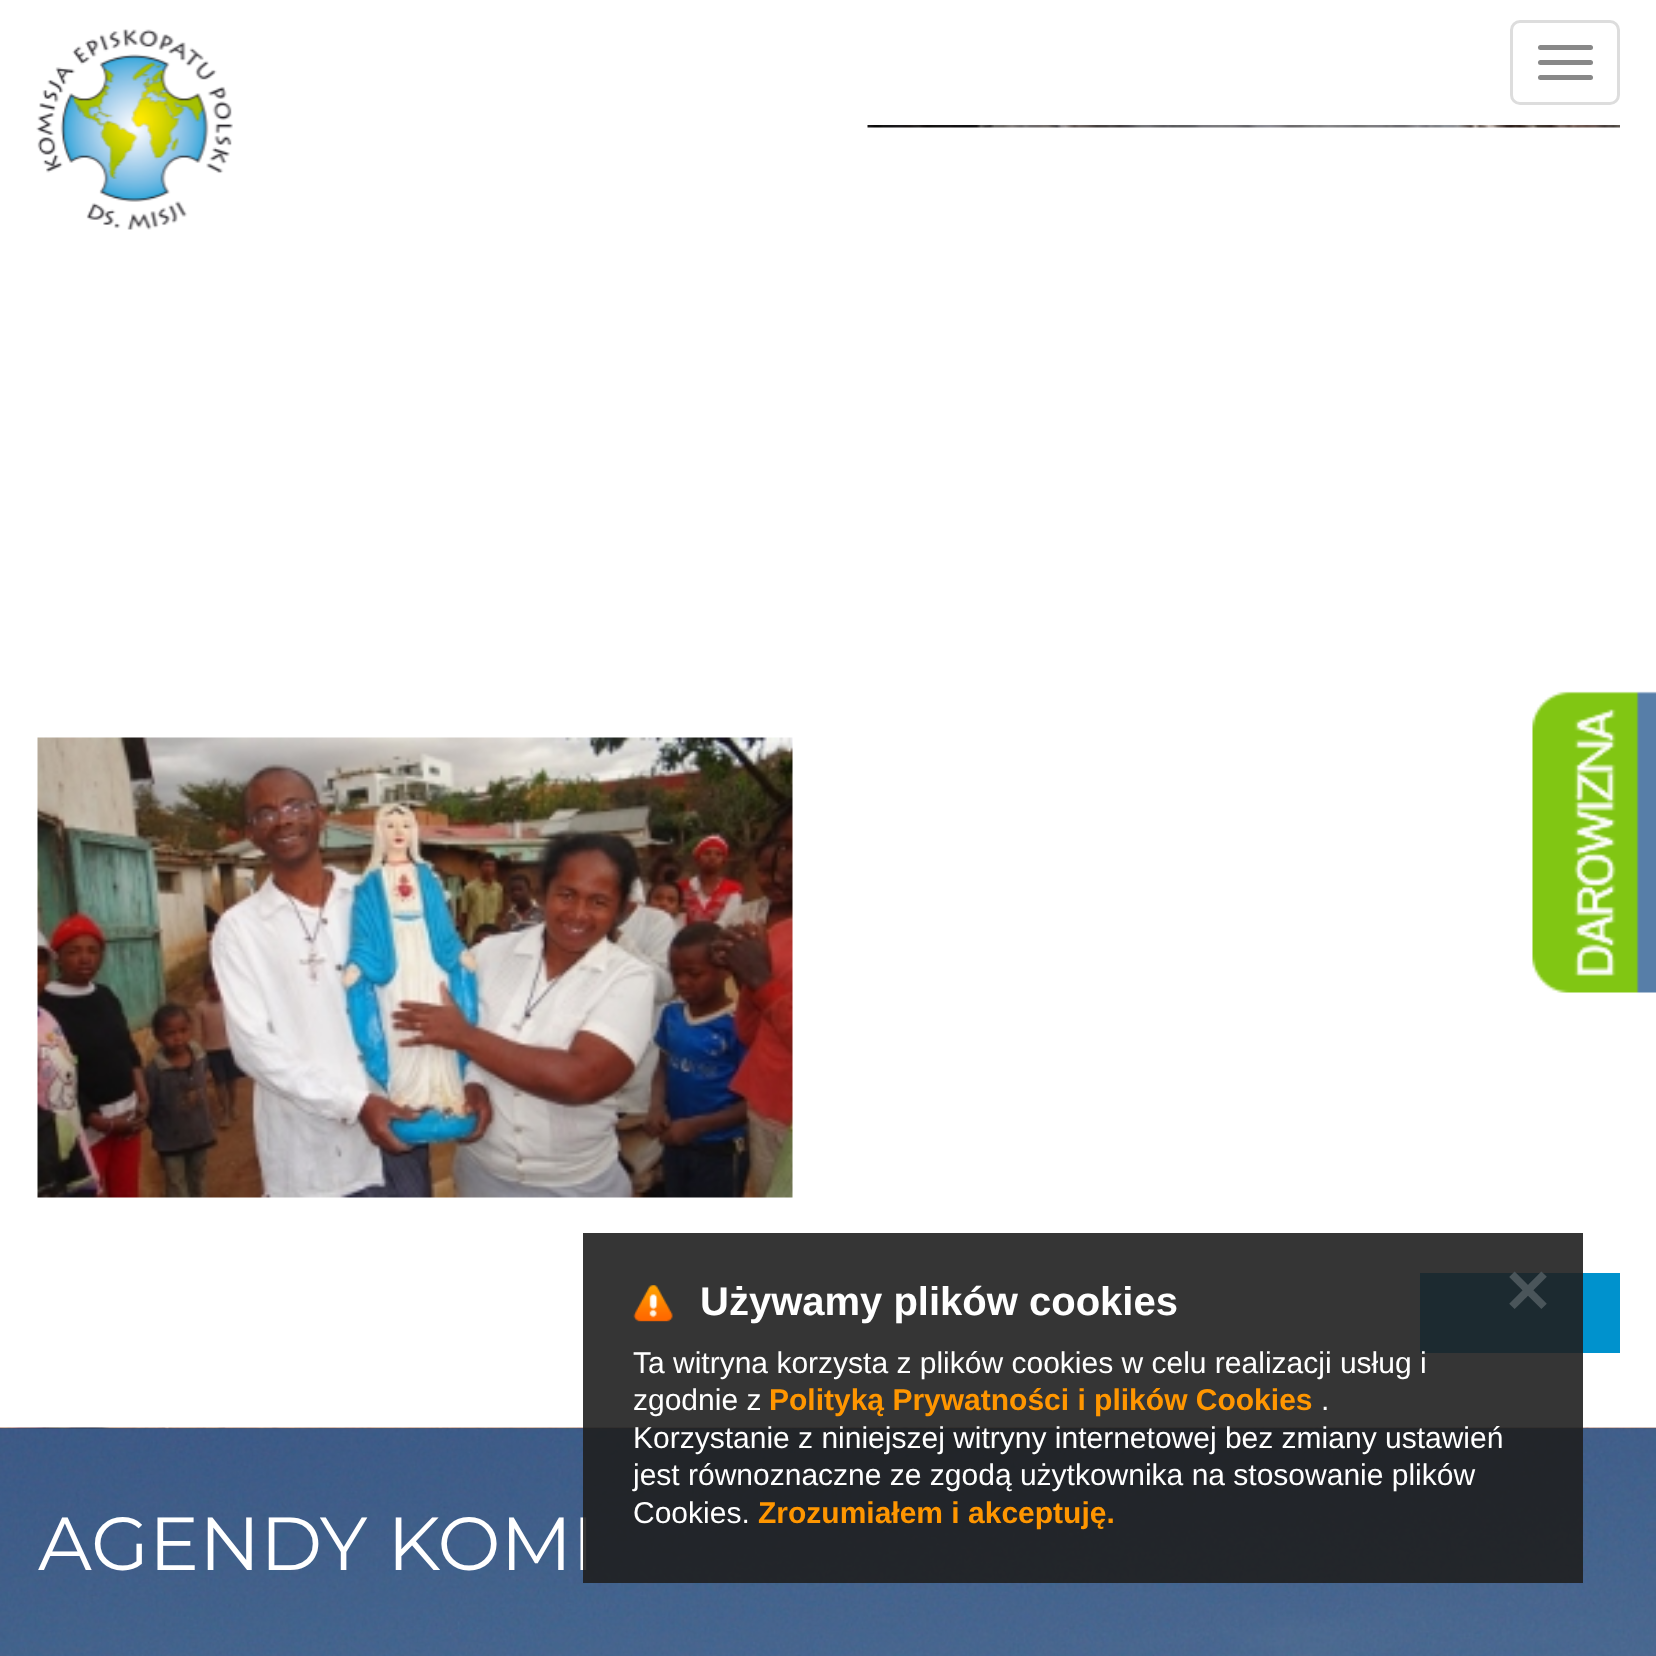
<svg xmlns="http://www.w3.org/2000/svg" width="1656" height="1656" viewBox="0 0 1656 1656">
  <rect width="100%" height="100%" fill="#ffffff"/>
  <image x="36" y="29" width="197" height="201" href="img1.png"/>
  <rect x="1511.5" y="21.5" width="107" height="82" rx="8.5" fill="none" stroke="#dddddd" stroke-width="3"/>
  <rect x="1538" y="45" width="55" height="5" rx="2.5" fill="#888888"/>
  <rect x="1538" y="60" width="55" height="5" rx="2.5" fill="#888888"/>
  <rect x="1538" y="75" width="55" height="5" rx="2.5" fill="#888888"/>
  <image x="867" y="125" width="753" height="3" href="img2.png"/>
  <image x="37" y="737" width="756" height="461" href="img3.png"/>
  <rect x="1420" y="1273" width="200" height="80" fill="#0092cd"/>
  <image x="1532" y="691" width="124" height="302" href="img4.png"/>
  <image x="0" y="1427" width="1656" height="229" href="img6.png"/>
  <text x="38" y="1570" font-family="Montserrat" font-size="75" fill="#ffffff">AGENDY KOMI</text>
  <rect x="583" y="1233" width="1000" height="350" fill="#1f1f1f" fill-opacity="0.9"/>
  <image x="633" y="1285" width="40" height="37" href="img5.png"/>
  <text x="700" y="1315" font-family="Liberation Sans" font-size="40" font-weight="bold" fill="#ffffff">Używamy plików cookies</text>
  <text x="1502" y="1313" font-family="DejaVu Sans" font-size="60" font-weight="bold" fill="#4a555a">✕</text>
  <text x="633" y="1373" font-family="Liberation Sans" font-size="30" fill="#ffffff">Ta witryna korzysta z plików cookies w celu realizacji usług i</text>
  <text x="633" y="1410" font-family="Liberation Sans" font-size="30" fill="#ffffff">zgodnie z</text>
  <text x="769" y="1410" font-family="Liberation Sans" font-size="30" font-weight="bold" fill="#ff9600">Polityką Prywatności i plików Cookies</text>
  <text x="1321" y="1410" font-family="Liberation Sans" font-size="30" fill="#ffffff">.</text>
  <text x="633" y="1448" font-family="Liberation Sans" font-size="30" fill="#ffffff">Korzystanie z niniejszej witryny internetowej bez zmiany ustawień</text>
  <text x="633" y="1485" font-family="Liberation Sans" font-size="30" fill="#ffffff">jest równoznaczne ze zgodą użytkownika na stosowanie plików</text>
  <text x="633" y="1523" font-family="Liberation Sans" font-size="30" fill="#ffffff">Cookies.</text>
  <text x="758" y="1523" font-family="Liberation Sans" font-size="30" font-weight="bold" fill="#ff9600">Zrozumiałem i akceptuję.</text>
</svg>
